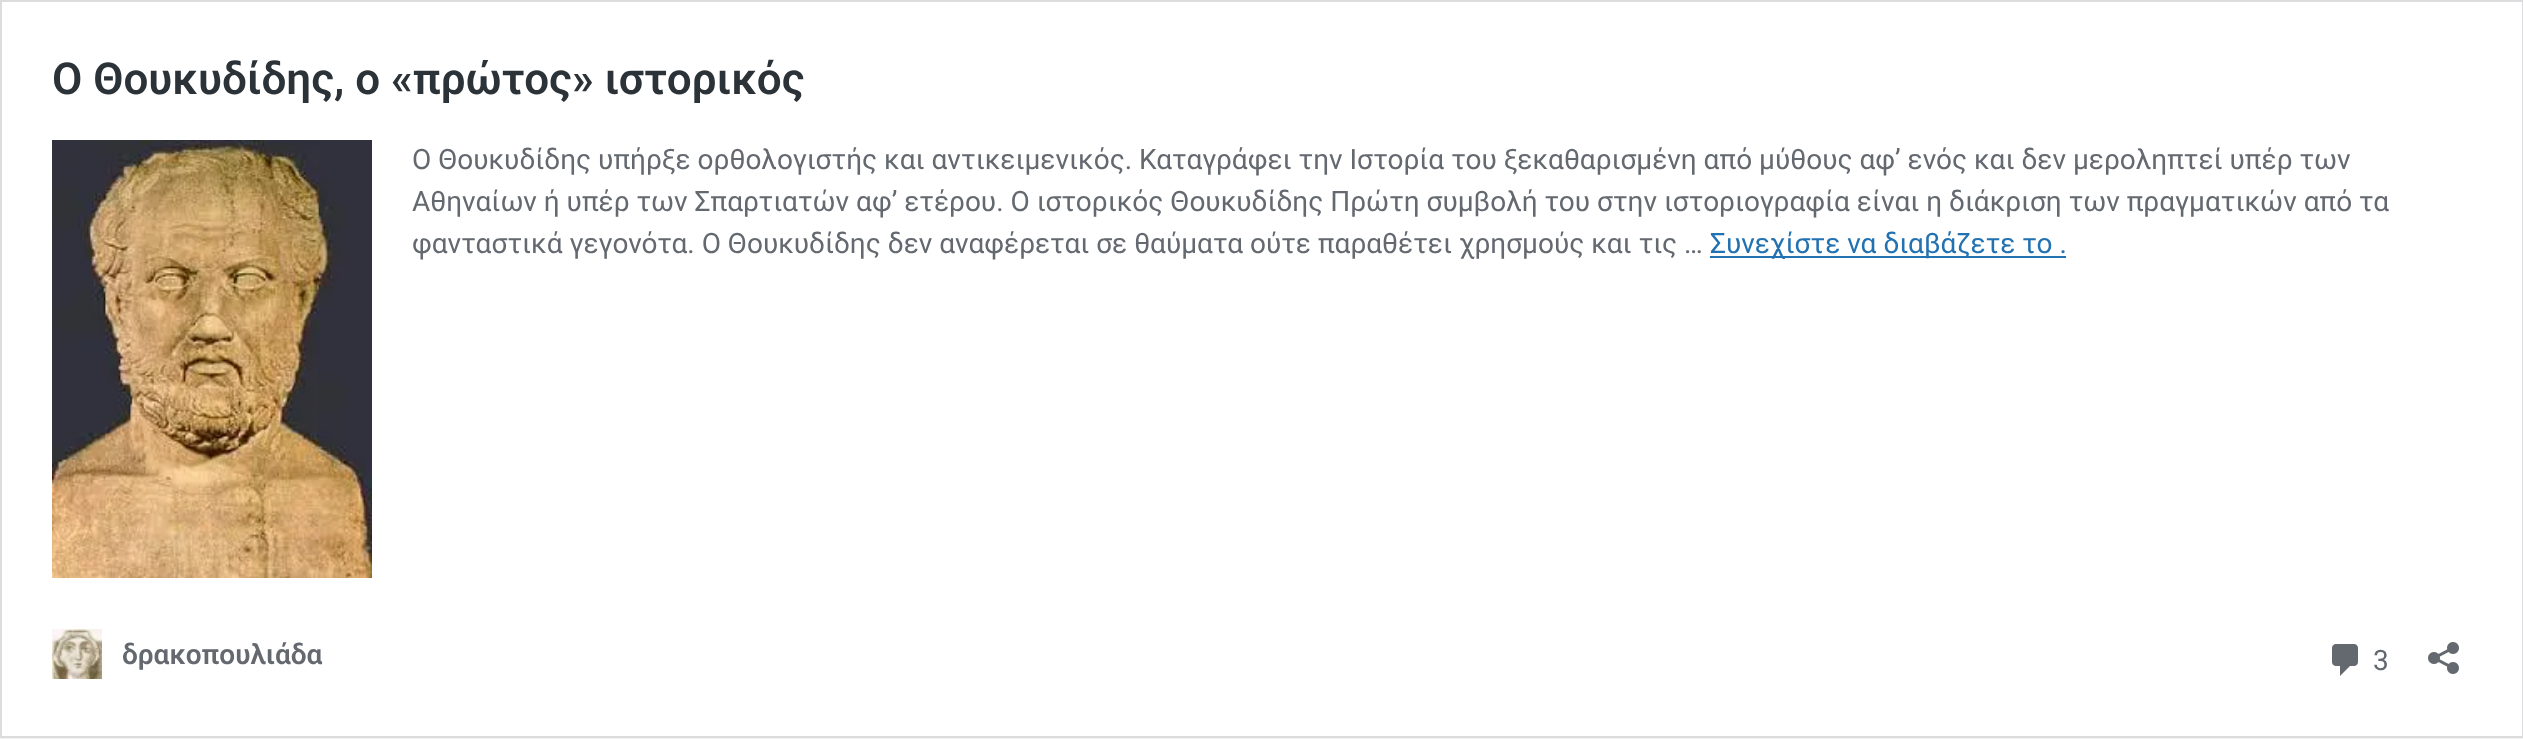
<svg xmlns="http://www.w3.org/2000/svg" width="2523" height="739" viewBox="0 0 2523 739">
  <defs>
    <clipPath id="clip1"><rect x="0" y="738" width="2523" height="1"/></clipPath>
    <filter id="blur1" x="-50%" y="-200%" width="200%" height="500%"><feGaussianBlur stdDeviation="1"/></filter>
  </defs>
  <rect width="100%" height="100%" fill="#ffffff"/>
  <g clip-path="url(#clip1)">
    <rect x="0" y="2" width="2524" height="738" fill="#000000" fill-opacity="0.05" filter="url(#blur1)"/>
  </g>
  <rect x="1" y="1" width="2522" height="736" fill="none" stroke="#dcdcde" stroke-width="2"/>
  <text x="52" y="94" font-family="Roboto" font-size="44" font-weight="600" fill="#2c3338">Ο Θουκυδίδης, ο «πρώτος» ιστορικός</text>
  <image x="52" y="140" width="320" height="438" href="img1.png"/>
  <text x="412" y="169" font-family="Roboto" font-size="28" fill="#646970">Ο Θουκυδίδης υπήρξε ορθολογιστής και αντικειμενικός. Καταγράφει την Ιστορία του ξεκαθαρισμένη από μύθους αφ’ ενός και δεν μεροληπτεί υπέρ των</text>
  <text x="412" y="211" font-family="Roboto" font-size="28" fill="#646970">Αθηναίων ή υπέρ των Σπαρτιατών αφ’ ετέρου. Ο ιστορικός Θουκυδίδης Πρώτη συμβολή του στην ιστοριογραφία είναι η διάκριση των πραγματικών από τα</text>
  <text x="412" y="253" font-family="Roboto" font-size="28" fill="#646970">φανταστικά γεγονότα. Ο Θουκυδίδης δεν αναφέρεται σε θαύματα ούτε παραθέτει χρησμούς και τις …</text>
  <rect x="1710" y="256" width="356" height="2" fill="#2271b1"/>
  <text x="1710" y="253" font-family="Roboto" font-size="28" fill="#2271b1">Συνεχίστε να διαβάζετε το .</text>
  <image x="52" y="629" width="50" height="50" href="img2.png"/>
  <text x="122" y="664" font-family="Roboto" font-size="28" font-weight="600" fill="#646970">δρακοπουλιάδα</text>
  <image x="2332" y="644" width="26" height="32" href="img3.png"/>
  <text x="2373" y="670" font-family="Roboto" font-size="28" fill="#646970">3</text>
  <image x="2428" y="642" width="31" height="32" href="img4.png"/>
</svg>
